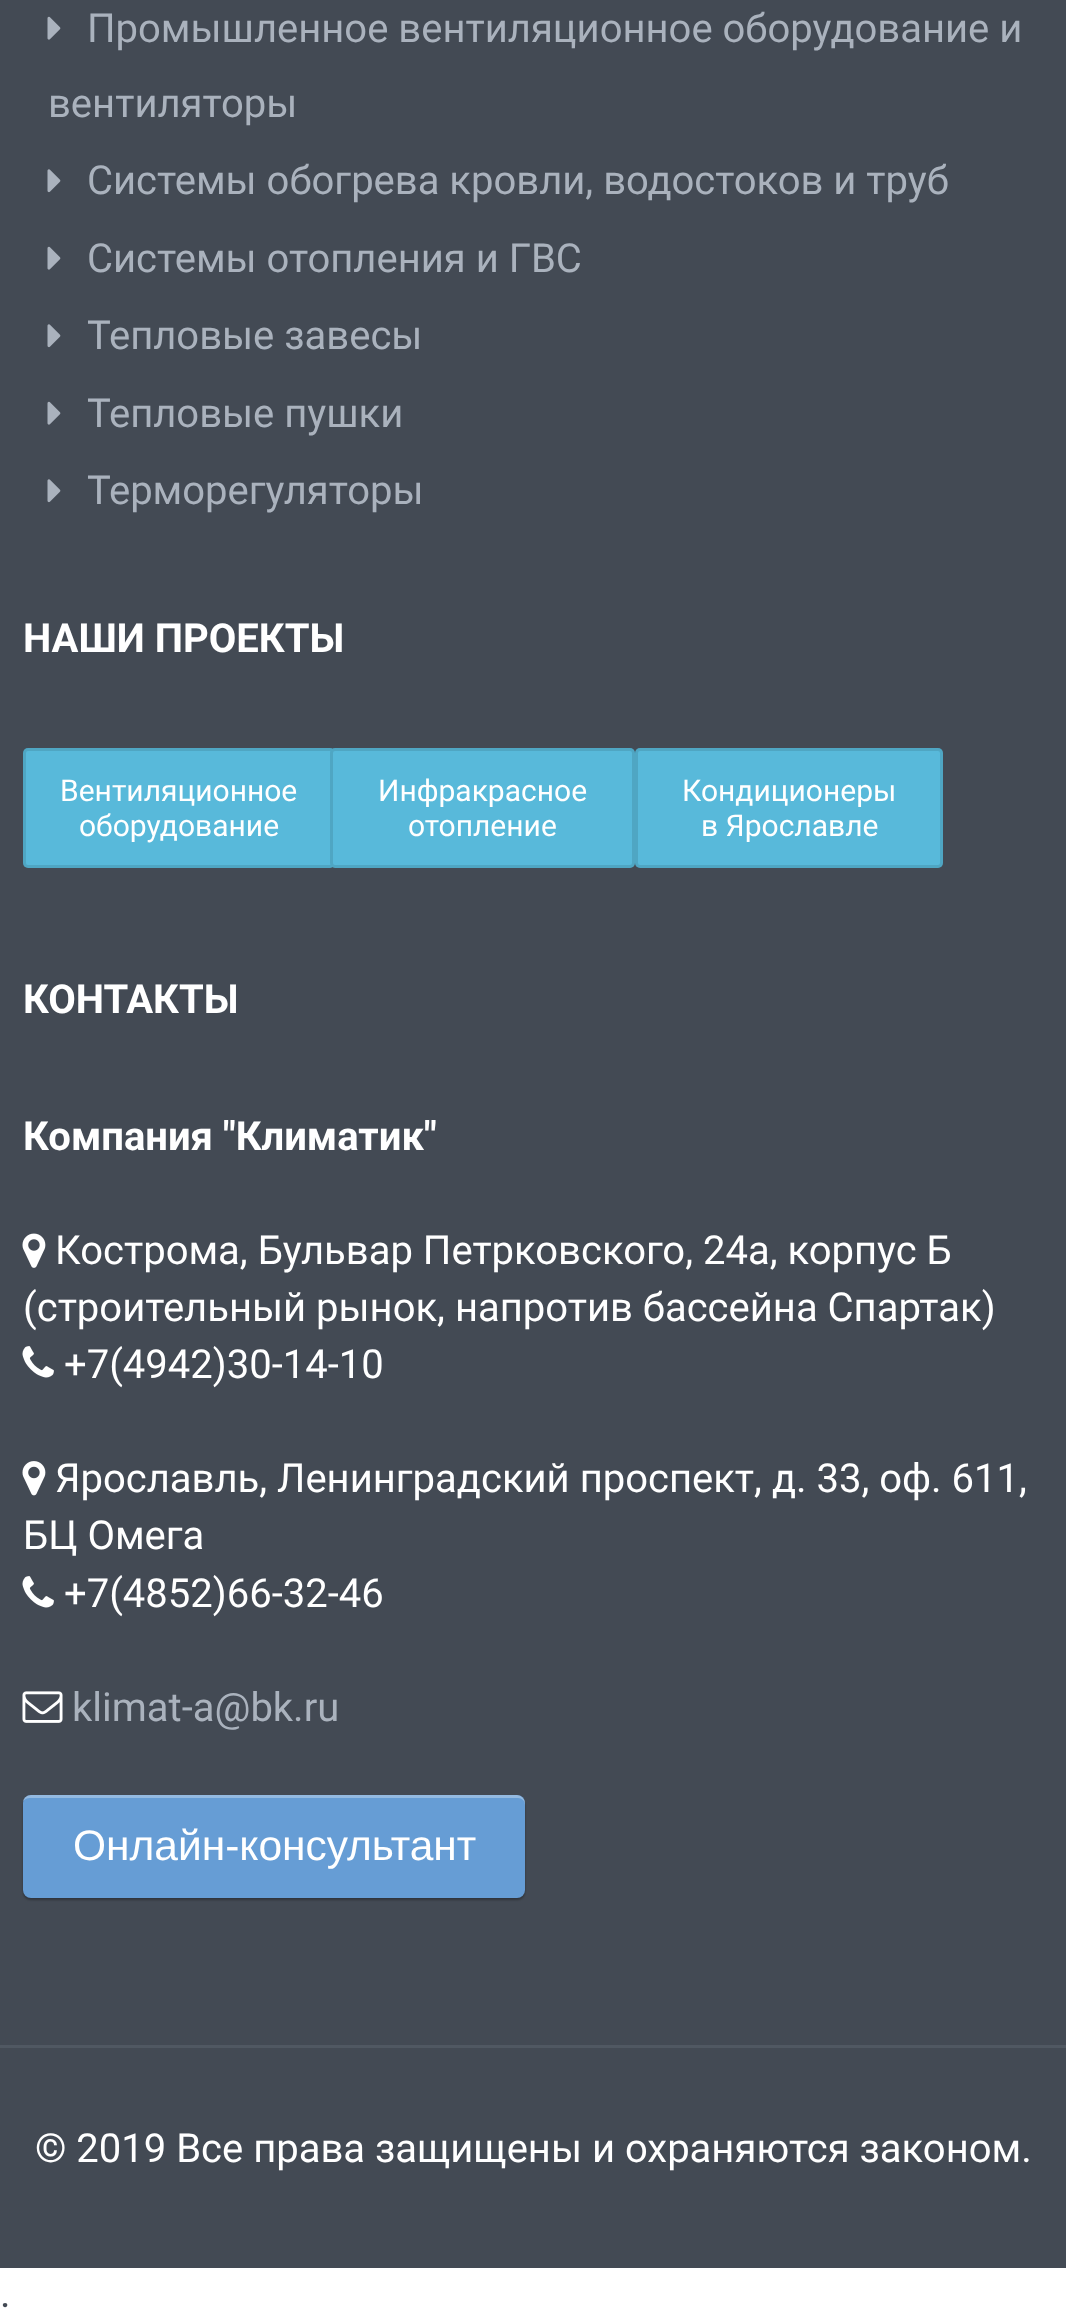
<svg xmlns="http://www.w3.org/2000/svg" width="1066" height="2323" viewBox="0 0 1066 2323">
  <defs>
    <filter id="blur1" x="-50%" y="-200%" width="200%" height="500%"><feGaussianBlur stdDeviation="1"/></filter>
  </defs>
  <rect width="100%" height="100%" fill="#ffffff"/>
  <rect x="0" y="0" width="1066" height="2045" fill="#434a54"/>
  <rect x="0" y="2045" width="1066" height="3" fill="#505862"/>
  <image x="47" y="16" width="14" height="24" href="img1.png"/>
  <text x="87" y="42" font-family="Roboto" font-size="40" fill="#aab2bd">Промышленное вентиляционное оборудование и</text>
  <text x="48" y="117" font-family="Roboto" font-size="40" fill="#aab2bd">вентиляторы</text>
  <image x="47" y="169" width="14" height="24" href="img2.png"/>
  <text x="87" y="194" font-family="Roboto" font-size="40" fill="#aab2bd">Системы обогрева кровли, водостоков и труб</text>
  <image x="47" y="246" width="14" height="24" href="img1.png"/>
  <text x="87" y="272" font-family="Roboto" font-size="40" fill="#aab2bd">Системы отопления и ГВС</text>
  <image x="47" y="324" width="14" height="24" href="img2.png"/>
  <text x="87" y="349" font-family="Roboto" font-size="40" fill="#aab2bd">Тепловые завесы</text>
  <image x="47" y="401" width="14" height="24" href="img1.png"/>
  <text x="87" y="427" font-family="Roboto" font-size="40" fill="#aab2bd">Тепловые пушки</text>
  <image x="47" y="479" width="14" height="24" href="img2.png"/>
  <text x="87" y="504" font-family="Roboto" font-size="40" fill="#aab2bd">Терморегуляторы</text>
  <text x="23" y="652" font-family="Roboto" font-size="40" font-weight="bold" fill="#ffffff">НАШИ ПРОЕКТЫ</text>
  <rect x="23" y="748" width="312" height="120" rx="5" fill="#58b9da"/>
  <rect x="24.5" y="749.5" width="309" height="117" rx="3.5" fill="none" stroke="#000000" stroke-opacity="0.1" stroke-width="3"/>
  <text x="60" y="801" font-family="Roboto" font-size="30" fill="#ffffff">Вентиляционное</text>
  <text x="79" y="836" font-family="Roboto" font-size="30" fill="#ffffff">оборудование</text>
  <rect x="330" y="748" width="305" height="120" rx="5" fill="#58b9da"/>
  <rect x="331.5" y="749.5" width="302" height="117" rx="3.5" fill="none" stroke="#000000" stroke-opacity="0.1" stroke-width="3"/>
  <text x="378" y="801" font-family="Roboto" font-size="30" fill="#ffffff">Инфракрасное</text>
  <text x="408" y="836" font-family="Roboto" font-size="30" fill="#ffffff">отопление</text>
  <rect x="635" y="748" width="308" height="120" rx="5" fill="#58b9da"/>
  <rect x="636.5" y="749.5" width="305" height="117" rx="3.5" fill="none" stroke="#000000" stroke-opacity="0.1" stroke-width="3"/>
  <text x="682" y="801" font-family="Roboto" font-size="30" fill="#ffffff">Кондиционеры</text>
  <text x="701" y="836" font-family="Roboto" font-size="30" fill="#ffffff">в Ярославле</text>
  <text x="23" y="1013" font-family="Roboto" font-size="40" font-weight="bold" fill="#ffffff">КОНТАКТЫ</text>
  <text x="23" y="1150" font-family="Roboto" font-size="40" font-weight="bold" fill="#ffffff">Компания "Климатик"</text>
  <image x="22" y="1233" width="24" height="35" href="img3.png"/>
  <text x="55" y="1264" font-family="Roboto" font-size="40" fill="#ffffff">Кострома, Бульвар Петрковского, 24а, корпус Б</text>
  <text x="23" y="1321" font-family="Roboto" font-size="40" fill="#ffffff">(строительный рынок, напротив бассейна Спартак)</text>
  <image x="22" y="1346" width="32" height="32" href="img4.png"/>
  <text x="64" y="1378" font-family="Roboto" font-size="40" fill="#ffffff">+7(4942)30-14-10</text>
  <image x="22" y="1461" width="24" height="35" href="img5.png"/>
  <text x="55" y="1492" font-family="Roboto" font-size="40" fill="#ffffff">Ярославль, Ленинградский проспект, д. 33, оф. 611,</text>
  <text x="23" y="1549" font-family="Roboto" font-size="40" fill="#ffffff">БЦ Омега</text>
  <image x="22" y="1576" width="32" height="32" href="img4.png"/>
  <text x="64" y="1607" font-family="Roboto" font-size="40" fill="#ffffff">+7(4852)66-32-46</text>
  <image x="22" y="1691" width="41" height="32" href="img6.png"/>
  <text x="72" y="1721" font-family="Roboto" font-size="40" fill="#aab2bd">klimat-a@bk.ru</text>
  <rect x="23" y="1798" width="502" height="102" rx="8" fill="#000000" fill-opacity="0.3" filter="url(#blur1)"/>
  <rect x="23" y="1795" width="502" height="103" rx="8" fill="#669dd5"/>
  <path d="M30 1798H518C522 1798 525 1801 525 1805V1803C525 1799 521 1795 517 1795H31C27 1795 24 1798 23 1801C25 1799 27 1798 30 1798Z" fill="#ffffff" fill-opacity="0.3"/>
  <text x="73" y="1860" font-family="Liberation Sans" font-size="42.5" fill="#ffffff">Онлайн-консультант</text>
  <rect x="0" y="2048" width="1066" height="220" fill="#434a54"/>
  <text x="35" y="2162" font-family="Roboto" font-size="40" fill="#ffffff">© 2019 Все права защищены и охраняются законом.</text>
  <text x="0" y="2307" font-family="Roboto" font-size="40" fill="#434a54">.</text>
</svg>
